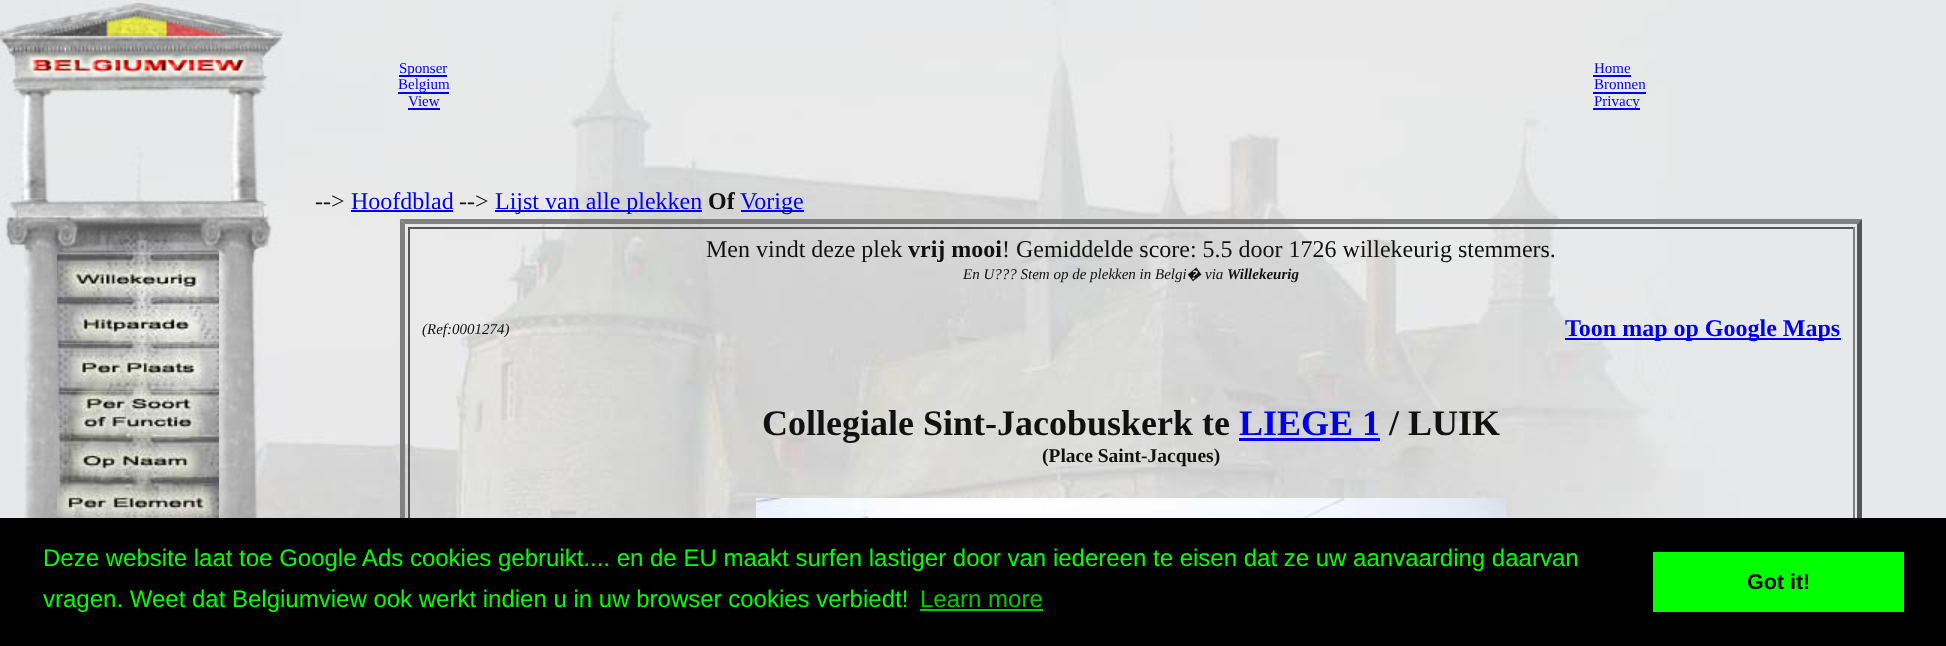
<svg xmlns="http://www.w3.org/2000/svg" width="1946" height="646" viewBox="0 0 1946 646">
  <rect width="100%" height="100%" fill="#ffffff"/>
  <image x="285" y="0" width="1661" height="518" href="img1.png"/>
  <image x="0" y="0" width="285" height="518" href="img2.png"/>
  <rect x="399" y="75" width="48" height="2" fill="#0000ee"/>
  <text x="399" y="73" font-family="Liberation Serif" font-size="15" fill="#0000ee">Sponser</text>
  <rect x="398" y="92" width="51" height="2" fill="#0000ee"/>
  <text x="398" y="89" font-family="Liberation Serif" font-size="15" fill="#0000ee">Belgium</text>
  <text x="408" y="106" font-family="Liberation Serif" font-size="15" fill="#0000ee">View</text>
  <rect x="408" y="108" width="32" height="2" fill="#0000ee"/>
  <text x="1594" y="73" font-family="Liberation Serif" font-size="15" fill="#0000ee">Home</text>
  <rect x="1593" y="75" width="38" height="2" fill="#0000ee"/>
  <text x="1594" y="89" font-family="Liberation Serif" font-size="15" fill="#0000ee">Bronnen</text>
  <rect x="1593" y="92" width="53" height="2" fill="#0000ee"/>
  <rect x="1593" y="108" width="47" height="2" fill="#0000ee"/>
  <text x="1594" y="106" font-family="Liberation Serif" font-size="15" fill="#0000ee">Privacy</text>
  <image x="57" y="253" width="162" height="47" href="img3.png"/>
  <text x="315" y="209" font-family="Liberation Serif" font-size="24" fill="#111111">--&gt;</text>
  <text x="351" y="209" font-family="Liberation Serif" font-size="24" fill="#0000ee">Hoofdblad</text>
  <rect x="351" y="210" width="102" height="2" fill="#0000ee"/>
  <text x="459" y="209" font-family="Liberation Serif" font-size="24" fill="#111111">--&gt;</text>
  <rect x="495" y="210" width="207" height="2" fill="#0000ee"/>
  <text x="495" y="209" font-family="Liberation Serif" font-size="24" fill="#0000ee">Lijst van alle plekken</text>
  <text x="708" y="209" font-family="Liberation Serif" font-size="24" font-weight="bold" fill="#111111">Of</text>
  <rect x="741" y="210" width="63" height="2" fill="#0000ee"/>
  <text x="740" y="209" font-family="Liberation Serif" font-size="24" fill="#0000ee">Vorige</text>
  <path d="M400 219H1862L1857 224H405Z" fill="#808080"/>
  <path d="M1862 219V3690L1857 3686V224Z" fill="#555555"/>
  <path d="M400 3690V219L405 224V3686Z" fill="#808080"/>
  <rect x="408" y="227" width="1446" height="2" fill="#555555"/>
  <rect x="1853" y="227" width="2" height="291" fill="#808080"/>
  <rect x="408" y="227" width="2" height="291" fill="#555555"/>
  <text x="706" y="257" font-family="Liberation Serif" font-size="24" fill="#111111">Men vindt deze plek</text>
  <text x="908" y="257" font-family="Liberation Serif" font-size="24" font-weight="bold" fill="#111111">vrij mooi</text>
  <text x="1002" y="257" font-family="Liberation Serif" font-size="24" fill="#111111">! Gemiddelde score: 5.5 door 1726 willekeurig stemmers.</text>
  <text x="963" y="279" font-family="Liberation Serif" font-size="15" font-style="italic" fill="#111111">En U??? Stem op de plekken in Belgi</text>
  <text x="1186" y="279" font-family="Noto Sans" font-size="15" font-style="italic" fill="#111111">�</text>
  <text x="1205" y="279" font-family="Liberation Serif" font-size="15" font-style="italic" fill="#111111">via</text>
  <text x="1227" y="279" font-family="Liberation Serif" font-size="15" font-weight="bold" font-style="italic" fill="#111111">Willekeurig</text>
  <text x="422" y="334" font-family="Liberation Serif" font-size="15" font-style="italic" fill="#111111">(Ref:0001274)</text>
  <rect x="1565" y="338" width="276" height="2" fill="#0000ee"/>
  <text x="1565" y="336" font-family="Liberation Serif" font-size="24" font-weight="bold" fill="#0000ee">Toon map op Google Maps</text>
  <text x="762" y="435" font-family="Liberation Serif" font-size="36" font-weight="bold" fill="#111111">Collegiale Sint-Jacobuskerk te</text>
  <text x="1239" y="435" font-family="Liberation Serif" font-size="36" font-weight="bold" fill="#0000ee">LIEGE 1</text>
  <rect x="1239" y="438" width="141" height="3" fill="#0000ee"/>
  <text x="1389" y="435" font-family="Liberation Serif" font-size="36" font-weight="bold" fill="#111111">/ LUIK</text>
  <text x="1042" y="462" font-family="Liberation Serif" font-size="19.5" font-weight="bold" fill="#111111">(Place Saint-Jacques)</text>
  <image x="756" y="498" width="750" height="20" href="img4.png"/>
  <image x="57" y="300" width="162" height="44" href="img5.png"/>
  <image x="57" y="343" width="162" height="49" href="img6.png"/>
  <image x="57" y="391" width="162" height="47" href="img7.png"/>
  <image x="57" y="438" width="162" height="42" href="img8.png"/>
  <image x="57" y="480" width="162" height="38" href="img9.png"/>
  <rect x="0" y="518" width="1946" height="128" fill="#000000"/>
  <text x="43" y="566" font-family="Liberation Sans" font-size="24" fill="#00ff00">Deze website laat toe Google Ads cookies gebruikt.... en de EU maakt surfen lastiger door van iedereen te eisen dat ze uw aanvaarding daarvan</text>
  <text x="43" y="607" font-family="Liberation Sans" font-size="24" fill="#00ff00">vragen. Weet dat Belgiumview ook werkt indien u in uw browser cookies verbiedt!</text>
  <text x="920" y="607" font-family="Liberation Sans" font-size="24" fill="#00cc00">Learn more</text>
  <rect x="920" y="609" width="123" height="2" fill="#00cc00"/>
  <rect x="1653" y="552" width="251" height="60" fill="#00ff00"/>
  <text x="1747" y="589" font-family="Liberation Sans" font-size="21.5" font-weight="bold" fill="#000000">Got it!</text>
</svg>
